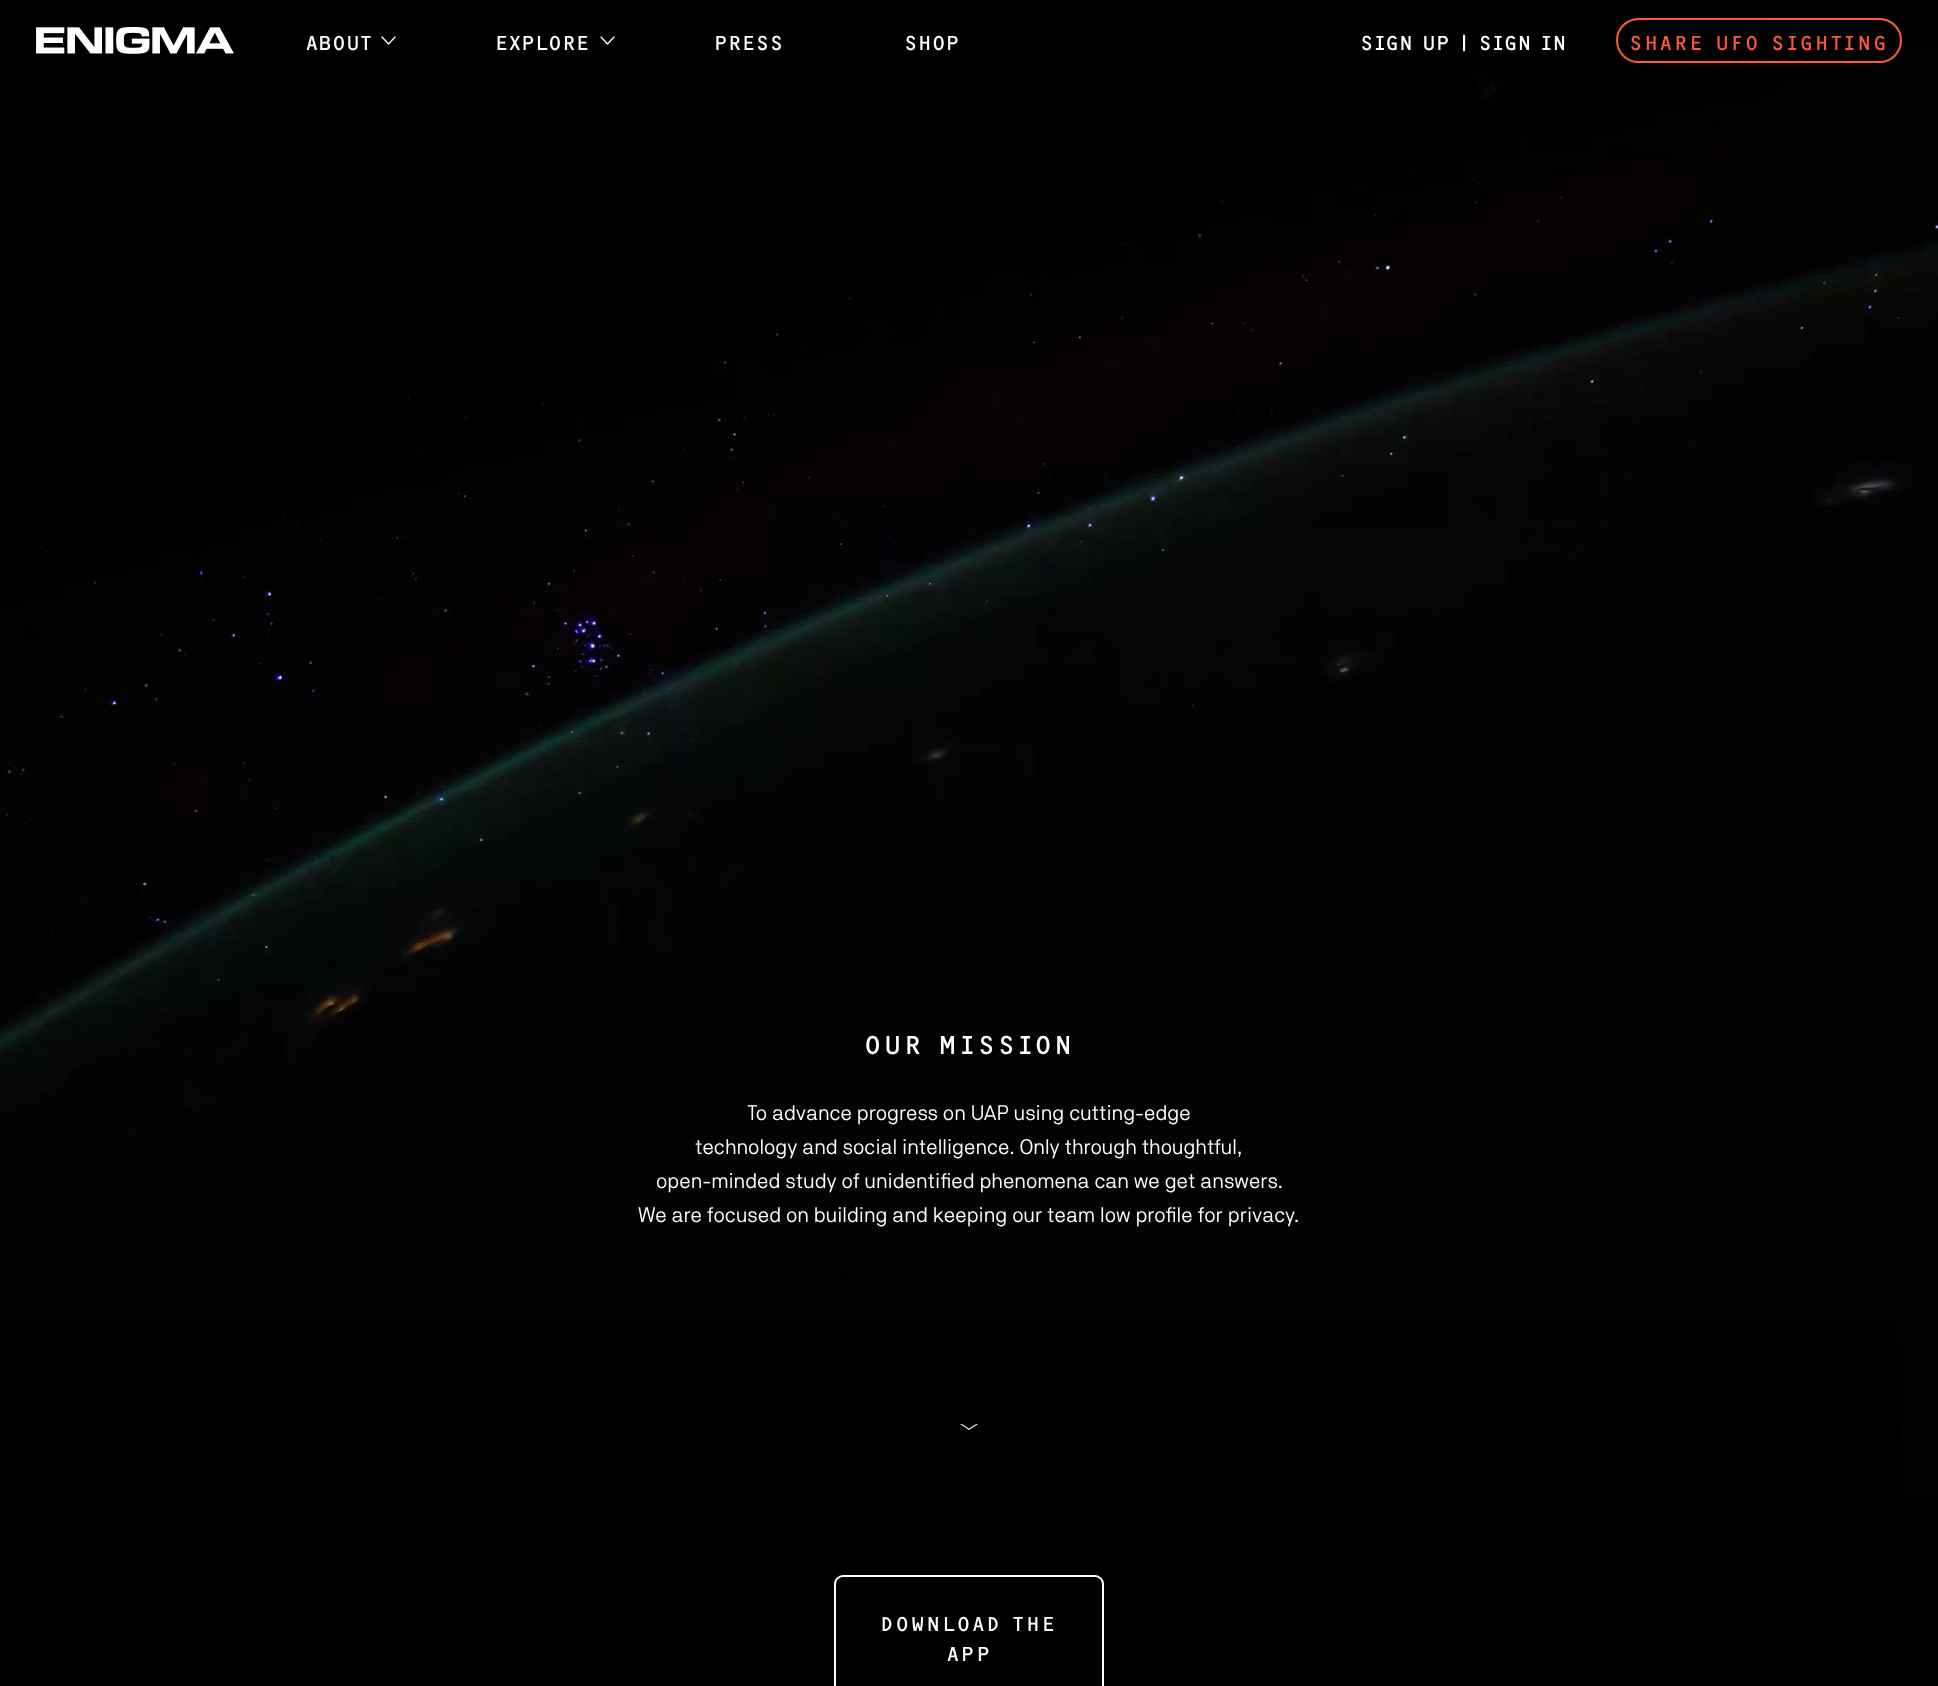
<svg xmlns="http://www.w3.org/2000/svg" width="1938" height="1686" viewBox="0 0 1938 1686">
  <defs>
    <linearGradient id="g1" gradientUnits="userSpaceOnUse" x1="969" y1="1518" x2="969" y2="1097"><stop offset="0" stop-color="#000000"/><stop offset="0.11" stop-color="#000000" stop-opacity="0.92"/><stop offset="0.22" stop-color="#000000" stop-opacity="0.82"/><stop offset="0.31" stop-color="#000000" stop-opacity="0.72"/><stop offset="0.39" stop-color="#000000" stop-opacity="0.61"/><stop offset="0.47" stop-color="#000000" stop-opacity="0.5"/><stop offset="0.55" stop-color="#000000" stop-opacity="0.39"/><stop offset="0.62" stop-color="#000000" stop-opacity="0.29"/><stop offset="0.69" stop-color="#000000" stop-opacity="0.19"/><stop offset="0.76" stop-color="#000000" stop-opacity="0.11"/><stop offset="0.83" stop-color="#000000" stop-opacity="0.06"/><stop offset="0.91" stop-color="#000000" stop-opacity="0.02"/><stop offset="1" stop-color="#000000" stop-opacity="0"/></linearGradient>
    <clipPath id="clip1"><rect x="960" y="1424" width="18" height="7"/></clipPath>
  </defs>
  <rect width="100%" height="100%" fill="#000000"/>
  <image x="0" y="4" width="1938" height="1498" href="img2.png"/>
  <rect x="1916" y="4" width="1" height="1" fill="#000000" fill-opacity="0.5"/>
  <image x="36" y="27" width="198" height="27" href="img1.png"/>
  <text x="306" y="50" font-family="'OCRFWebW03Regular'" font-size="21" letter-spacing="0.5" fill="#ffffff">ABOUT</text>
  <path d="M395 37L388.5 44L382 37" fill="none" stroke="#ffffff" stroke-width="1.3" stroke-linecap="round" stroke-linejoin="round"/>
  <text x="495" y="50" font-family="'OCRFWebW03Regular'" font-size="21" letter-spacing="0.5" fill="#ffffff">EXPLORE</text>
  <path d="M614 37L607.5 44L601 37" fill="none" stroke="#ffffff" stroke-width="1.3" stroke-linecap="round" stroke-linejoin="round"/>
  <text x="714" y="50" font-family="'OCRFWebW03Regular'" font-size="21" letter-spacing="0.5" fill="#ffffff">PRESS</text>
  <text x="904" y="50" font-family="'OCRFWebW03Regular'" font-size="21" letter-spacing="0.5" fill="#ffffff">SHOP</text>
  <text x="1360" y="50" font-family="'OCRFWebW03Regular'" font-size="21" letter-spacing="0.5" fill="#ffffff">SIGN UP | SIGN IN</text>
  <rect x="1617" y="19" width="284" height="43" rx="21.5" fill="none" stroke="#ff5935" stroke-width="2"/>
  <text x="1629" y="50" font-family="'OCRFWebW03Regular'" font-size="21" letter-spacing="2.1" fill="#ff5935">SHARE UFO SIGHTING</text>
  <text x="864" y="1054" font-family="'OCRFWebW03Regular'" font-size="27" letter-spacing="2.75" fill="#ffffff">OUR MISSION</text>
  <text x="747" y="1120" font-family="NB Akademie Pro" font-size="21" fill="#ffffff">To advance progress on UAP using cutting-edge</text>
  <text x="695" y="1154" font-family="NB Akademie Pro" font-size="21" fill="#ffffff">technology and social intelligence. Only through thoughtful,</text>
  <text x="656" y="1188" font-family="NB Akademie Pro" font-size="21" fill="#ffffff">open-minded study of unidentified phenomena can we get answers.</text>
  <text x="638" y="1222" font-family="NB Akademie Pro" font-size="21" fill="#ffffff">We are focused on building and keeping our team low profile for privacy.</text>
  <rect x="0" y="1271" width="1901" height="231" fill="url(#g1)"/>
  <g clip-path="url(#clip1)">
    <path d="M977 1423.5L969 1428.5L961 1423.5L960.5 1424.5L969 1430L977.5 1424.5Z" fill="#e5e5e5"/>
  </g>
  <rect x="835" y="1576" width="268" height="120" rx="8" fill="none" stroke="#ffffff" stroke-width="2"/>
  <text x="880" y="1631" font-family="'OCRFWebW03Regular'" font-size="21" letter-spacing="2.1" fill="#ffffff">DOWNLOAD THE</text>
  <text x="947" y="1661" font-family="'OCRFWebW03Regular'" font-size="21" letter-spacing="2.1" fill="#ffffff">APP</text>
</svg>
